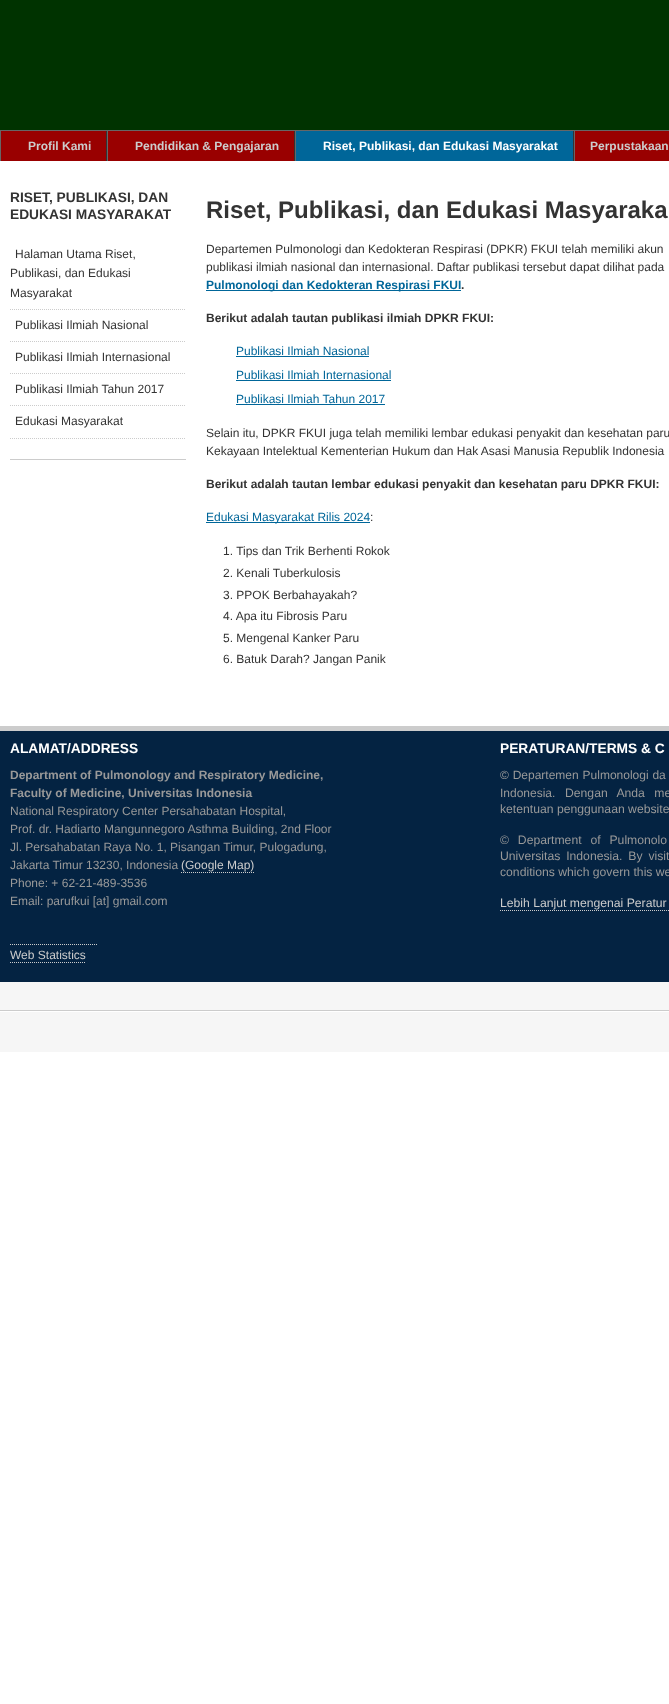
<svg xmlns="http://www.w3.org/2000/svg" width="669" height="1704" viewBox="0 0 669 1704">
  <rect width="100%" height="100%" fill="#ffffff"/>
  <rect x="0" y="0" width="669" height="130" fill="#003300"/>
  <rect x="1" y="131" width="668" height="30" fill="#990000"/>
  <rect x="0" y="130" width="669" height="1" fill="#666666"/>
  <rect x="106" y="131" width="1" height="30" fill="#333333"/>
  <rect x="0" y="131" width="1" height="30" fill="#666666"/>
  <text x="28" y="150" font-family="Liberation Sans" font-size="12" font-weight="bold" fill="#cccccc">Profil Kami</text>
  <rect x="294" y="131" width="1" height="30" fill="#333333"/>
  <rect x="107" y="131" width="1" height="30" fill="#666666"/>
  <text x="135" y="150" font-family="Liberation Sans" font-size="12" font-weight="bold" fill="#cccccc">Pendidikan &amp; Pengajaran</text>
  <rect x="296" y="131" width="277" height="30" fill="#006699"/>
  <rect x="573" y="131" width="1" height="30" fill="#333333"/>
  <rect x="295" y="131" width="1" height="30" fill="#666666"/>
  <text x="323" y="150" font-family="Liberation Sans" font-size="12" font-weight="bold" fill="#ffffff">Riset, Publikasi, dan Edukasi Masyarakat</text>
  <rect x="574" y="131" width="1" height="30" fill="#666666"/>
  <text x="590" y="150" font-family="Liberation Sans" font-size="12" font-weight="bold" fill="#cccccc">Perpustakaan</text>
  <rect x="0" y="726" width="669" height="5" fill="#cccccc"/>
  <rect x="10" y="459" width="176" height="1" fill="#cccccc"/>
  <text x="10" y="202" font-family="Liberation Sans" font-size="13.75" font-weight="bold" fill="#333333">RISET, PUBLIKASI, DAN</text>
  <text x="10" y="219" font-family="Liberation Sans" font-size="13.75" font-weight="bold" fill="#333333">EDUKASI MASYARAKAT</text>
  <path d="M10 309.5H186" fill="none" stroke="#cccccc" stroke-dasharray="1 1"/>
  <text x="15" y="258" font-family="Liberation Sans" font-size="12" fill="#333333">Halaman Utama Riset,</text>
  <text x="10" y="277" font-family="Liberation Sans" font-size="12" fill="#333333">Publikasi, dan Edukasi</text>
  <text x="10" y="297" font-family="Liberation Sans" font-size="12" fill="#333333">Masyarakat</text>
  <path d="M10 341.5H186" fill="none" stroke="#cccccc" stroke-dasharray="1 1"/>
  <text x="15" y="329" font-family="Liberation Sans" font-size="12" fill="#333333">Publikasi Ilmiah Nasional</text>
  <path d="M10 373.5H186" fill="none" stroke="#cccccc" stroke-dasharray="1 1"/>
  <text x="15" y="361" font-family="Liberation Sans" font-size="12" fill="#333333">Publikasi Ilmiah Internasional</text>
  <path d="M10 405.5H186" fill="none" stroke="#cccccc" stroke-dasharray="1 1"/>
  <text x="15" y="393" font-family="Liberation Sans" font-size="12" fill="#333333">Publikasi Ilmiah Tahun 2017</text>
  <path d="M10 438.5H186" fill="none" stroke="#cccccc" stroke-dasharray="1 1"/>
  <text x="15" y="425" font-family="Liberation Sans" font-size="12" fill="#333333">Edukasi Masyarakat</text>
  <text x="206" y="218" font-family="Liberation Sans" font-size="24" font-weight="bold" fill="#333333">Riset, Publikasi, dan Edukasi Masyaraka</text>
  <text x="206" y="253" font-family="Liberation Sans" font-size="12" fill="#333333">Departemen Pulmonologi dan Kedokteran Respirasi (DPKR) FKUI telah memiliki akun</text>
  <text x="206" y="271" font-family="Liberation Sans" font-size="12" fill="#333333">publikasi ilmiah nasional dan internasional. Daftar publikasi tersebut dapat dilihat pada</text>
  <rect x="206" y="290" width="255" height="1" fill="#006699"/>
  <text x="206" y="289" font-family="Liberation Sans" font-size="12" font-weight="bold" fill="#006699">Pulmonologi dan Kedokteran Respirasi FKUI</text>
  <text x="461" y="289" font-family="Liberation Sans" font-size="12" font-weight="bold" fill="#333333">.</text>
  <text x="206" y="322" font-family="Liberation Sans" font-size="12" font-weight="bold" fill="#333333">Berikut adalah tautan publikasi ilmiah DPKR FKUI:</text>
  <text x="236" y="355" font-family="Liberation Sans" font-size="12" fill="#006699">Publikasi Ilmiah Nasional</text>
  <rect x="236" y="356" width="133" height="1" fill="#006699"/>
  <text x="236" y="379" font-family="Liberation Sans" font-size="12" fill="#006699">Publikasi Ilmiah Internasional</text>
  <rect x="236" y="380" width="155" height="1" fill="#006699"/>
  <text x="236" y="403" font-family="Liberation Sans" font-size="12" fill="#006699">Publikasi Ilmiah Tahun 2017</text>
  <rect x="236" y="404" width="149" height="1" fill="#006699"/>
  <text x="206" y="437" font-family="Liberation Sans" font-size="12" fill="#333333">Selain itu, DPKR FKUI juga telah memiliki lembar edukasi penyakit dan kesehatan paru</text>
  <text x="206" y="455" font-family="Liberation Sans" font-size="12" fill="#333333">Kekayaan Intelektual Kementerian Hukum dan Hak Asasi Manusia Republik Indonesia</text>
  <text x="206" y="488" font-family="Liberation Sans" font-size="12" font-weight="bold" fill="#333333">Berikut adalah tautan lembar edukasi penyakit dan kesehatan paru DPKR FKUI:</text>
  <rect x="206" y="522" width="164" height="1" fill="#006699"/>
  <text x="206" y="521" font-family="Liberation Sans" font-size="12" fill="#006699">Edukasi Masyarakat Rilis 2024</text>
  <text x="370" y="521" font-family="Liberation Sans" font-size="12" fill="#333333">:</text>
  <text x="223" y="555" font-family="Liberation Sans" font-size="12" fill="#333333">1. Tips dan Trik Berhenti Rokok</text>
  <text x="223" y="577" font-family="Liberation Sans" font-size="12" fill="#333333">2. Kenali Tuberkulosis</text>
  <text x="223" y="599" font-family="Liberation Sans" font-size="12" fill="#333333">3. PPOK Berbahayakah?</text>
  <text x="223" y="620" font-family="Liberation Sans" font-size="12" fill="#333333">4. Apa itu Fibrosis Paru</text>
  <text x="223" y="642" font-family="Liberation Sans" font-size="12" fill="#333333">5. Mengenal Kanker Paru</text>
  <text x="223" y="663" font-family="Liberation Sans" font-size="12" fill="#333333">6. Batuk Darah? Jangan Panik</text>
  <rect x="0" y="731" width="669" height="251" fill="#042342"/>
  <text x="10" y="753" font-family="Liberation Sans" font-size="13.75" font-weight="bold" fill="#ffffff">ALAMAT/ADDRESS</text>
  <text x="10" y="779" font-family="Liberation Sans" font-size="12" font-weight="bold" fill="#999999">Department of Pulmonology and Respiratory Medicine,</text>
  <text x="10" y="797" font-family="Liberation Sans" font-size="12" font-weight="bold" fill="#999999">Faculty of Medicine, Universitas Indonesia</text>
  <text x="10" y="815" font-family="Liberation Sans" font-size="12" fill="#999999">National Respiratory Center Persahabatan Hospital,</text>
  <text x="10" y="833" font-family="Liberation Sans" font-size="12" fill="#999999">Prof. dr. Hadiarto Mangunnegoro Asthma Building, 2nd Floor</text>
  <text x="10" y="851" font-family="Liberation Sans" font-size="12" fill="#999999">Jl. Persahabatan Raya No. 1, Pisangan Timur, Pulogadung,</text>
  <text x="10" y="869" font-family="Liberation Sans" font-size="12" fill="#999999">Jakarta Timur 13230, Indonesia</text>
  <text x="181" y="869" font-family="Liberation Sans" font-size="12" fill="#cccccc">(Google Map)</text>
  <path d="M181 872.5H255" fill="none" stroke="#cccccc" stroke-dasharray="1 1"/>
  <text x="10" y="887" font-family="Liberation Sans" font-size="12" fill="#999999">Phone: + 62-21-489-3536</text>
  <text x="10" y="905" font-family="Liberation Sans" font-size="12" fill="#999999">Email: parufkui [at] gmail.com</text>
  <path d="M10 944.5H98" fill="none" stroke="#cccccc" stroke-dasharray="1 1"/>
  <text x="10" y="959" font-family="Liberation Sans" font-size="12" fill="#cccccc">Web Statistics</text>
  <path d="M10 962.5H86" fill="none" stroke="#cccccc" stroke-dasharray="1 1"/>
  <text x="500" y="753" font-family="Liberation Sans" font-size="13.75" font-weight="bold" fill="#ffffff">PERATURAN/TERMS &amp; C</text>
  <text x="500" y="779" word-spacing="0.5" font-family="Liberation Sans" font-size="12" fill="#999999">© Departemen Pulmonologi da</text>
  <text x="500" y="797" font-family="Liberation Sans" font-size="12" fill="#999999">Indonesia.</text>
  <text x="565" y="797" word-spacing="6" font-family="Liberation Sans" font-size="12.2" fill="#999999">Dengan Anda me</text>
  <text x="500" y="813" font-family="Liberation Sans" font-size="12.2" fill="#999999">ketentuan penggunaan website</text>
  <text x="500" y="844" word-spacing="5.5" font-family="Liberation Sans" font-size="12.2" fill="#999999">© Department of Pulmonolo</text>
  <text x="500" y="860" word-spacing="2.5" font-family="Liberation Sans" font-size="12.2" fill="#999999">Universitas Indonesia. By visit</text>
  <text x="500" y="876" font-family="Liberation Sans" font-size="12.2" fill="#999999">conditions which govern this we</text>
  <text x="500" y="907" font-family="Liberation Sans" font-size="12.2" fill="#cccccc">Lebih Lanjut mengenai Peratur</text>
  <path d="M500 910.5H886" fill="none" stroke="#cccccc" stroke-dasharray="1 1"/>
  <rect x="0" y="982" width="669" height="28" fill="#f6f6f6"/>
  <rect x="0" y="1010" width="669" height="1" fill="#cccccc"/>
  <rect x="0" y="1012" width="669" height="40" fill="#f6f6f6"/>
</svg>
